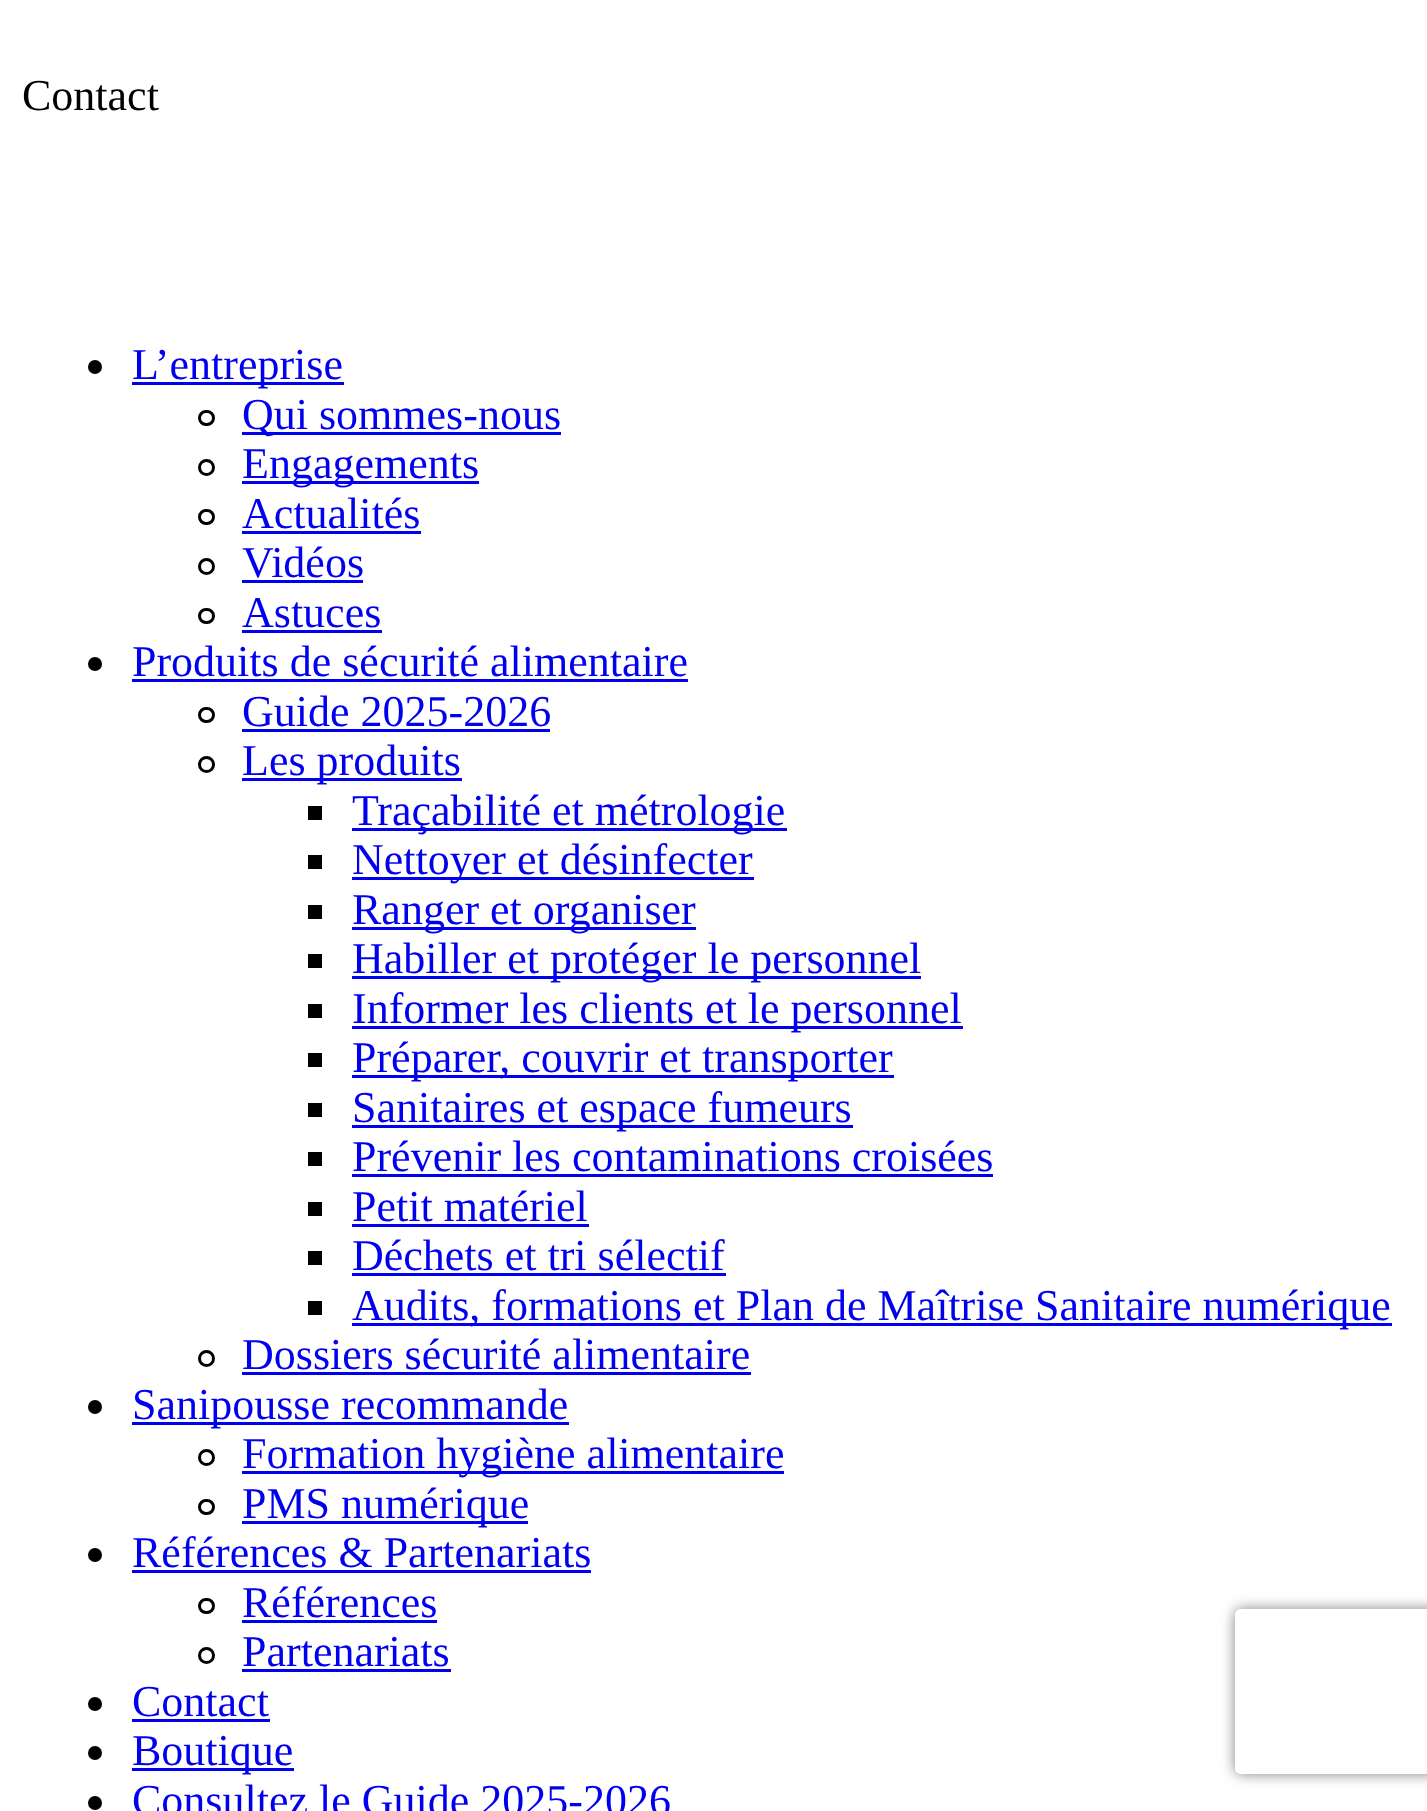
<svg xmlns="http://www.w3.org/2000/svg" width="1427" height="1811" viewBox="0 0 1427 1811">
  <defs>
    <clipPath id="clip1"><path d="M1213 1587H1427V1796H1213ZM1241 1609H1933C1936.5 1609 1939 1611.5 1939 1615V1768C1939 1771.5 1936.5 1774 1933 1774H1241C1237.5 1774 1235 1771.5 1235 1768V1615C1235 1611.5 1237.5 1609 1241 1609Z" clip-rule="evenodd"/></clipPath>
    <filter id="blur1" x="-50%" y="-200%" width="200%" height="500%"><feGaussianBlur stdDeviation="7"/></filter>
  </defs>
  <rect width="100%" height="100%" fill="#ffffff"/>
  <text x="22" y="110" font-family="Liberation Serif" font-size="44" fill="#000000">Contact</text>
  <circle cx="95" cy="367" r="7" fill="#000000"/>
  <rect x="132" y="382" width="212" height="3" fill="#0000ee"/>
  <text x="132" y="379" font-family="Liberation Serif" font-size="44" fill="#0000ee">L’entreprise</text>
  <rect x="199.5" y="411.5" width="14" height="13" rx="6.5" fill="none" stroke="#000000" stroke-width="3"/>
  <rect x="242" y="432" width="319" height="3" fill="#0000ee"/>
  <text x="242" y="429" font-family="Liberation Serif" font-size="44" fill="#0000ee">Qui sommes-nous</text>
  <circle cx="206.5" cy="467.5" r="7" fill="none" stroke="#000000" stroke-width="3"/>
  <rect x="242" y="481" width="237" height="3" fill="#0000ee"/>
  <text x="242" y="478" font-family="Liberation Serif" font-size="44" fill="#0000ee">Engagements</text>
  <rect x="199.5" y="510.5" width="14" height="13" rx="6.5" fill="none" stroke="#000000" stroke-width="3"/>
  <text x="242" y="528" font-family="Liberation Serif" font-size="44" fill="#0000ee">Actualités</text>
  <rect x="242" y="531" width="179" height="3" fill="#0000ee"/>
  <circle cx="206.5" cy="566.5" r="7" fill="none" stroke="#000000" stroke-width="3"/>
  <text x="242" y="577" font-family="Liberation Serif" font-size="44" fill="#0000ee">Vidéos</text>
  <rect x="242" y="580" width="121" height="3" fill="#0000ee"/>
  <rect x="199.5" y="609.5" width="14" height="13" rx="6.5" fill="none" stroke="#000000" stroke-width="3"/>
  <text x="242" y="627" font-family="Liberation Serif" font-size="44" fill="#0000ee">Astuces</text>
  <rect x="242" y="630" width="140" height="3" fill="#0000ee"/>
  <circle cx="95" cy="664" r="7" fill="#000000"/>
  <text x="132" y="676" font-family="Liberation Serif" font-size="44" fill="#0000ee">Produits de sécurité alimentaire</text>
  <rect x="132" y="679" width="556" height="3" fill="#0000ee"/>
  <rect x="199.5" y="708.5" width="14" height="13" rx="6.5" fill="none" stroke="#000000" stroke-width="3"/>
  <text x="242" y="726" font-family="Liberation Serif" font-size="44" fill="#0000ee">Guide 2025-2026</text>
  <rect x="242" y="729" width="308" height="3" fill="#0000ee"/>
  <circle cx="206.5" cy="764.5" r="7" fill="none" stroke="#000000" stroke-width="3"/>
  <rect x="242" y="778" width="220" height="3" fill="#0000ee"/>
  <text x="242" y="775" font-family="Liberation Serif" font-size="44" fill="#0000ee">Les produits</text>
  <rect x="308" y="806" width="14" height="14" fill="#000000"/>
  <rect x="352" y="828" width="435" height="3" fill="#0000ee"/>
  <text x="352" y="825" font-family="Liberation Serif" font-size="44" fill="#0000ee">Traçabilité et métrologie</text>
  <rect x="308" y="855" width="14" height="14" fill="#000000"/>
  <rect x="352" y="877" width="402" height="3" fill="#0000ee"/>
  <text x="352" y="874" font-family="Liberation Serif" font-size="44" fill="#0000ee">Nettoyer et désinfecter</text>
  <rect x="308" y="905" width="14" height="14" fill="#000000"/>
  <rect x="352" y="927" width="344" height="3" fill="#0000ee"/>
  <text x="352" y="924" font-family="Liberation Serif" font-size="44" fill="#0000ee">Ranger et organiser</text>
  <rect x="308" y="954" width="14" height="14" fill="#000000"/>
  <rect x="352" y="976" width="569" height="3" fill="#0000ee"/>
  <text x="352" y="973" font-family="Liberation Serif" font-size="44" fill="#0000ee">Habiller et protéger le personnel</text>
  <rect x="308" y="1004" width="14" height="14" fill="#000000"/>
  <rect x="352" y="1026" width="611" height="3" fill="#0000ee"/>
  <text x="352" y="1023" font-family="Liberation Serif" font-size="44" fill="#0000ee">Informer les clients et le personnel</text>
  <rect x="308" y="1053" width="14" height="14" fill="#000000"/>
  <rect x="352" y="1075" width="542" height="3" fill="#0000ee"/>
  <text x="352" y="1072" font-family="Liberation Serif" font-size="44" fill="#0000ee">Préparer, couvrir et transporter</text>
  <rect x="308" y="1103" width="14" height="14" fill="#000000"/>
  <rect x="352" y="1125" width="501" height="3" fill="#0000ee"/>
  <text x="352" y="1122" font-family="Liberation Serif" font-size="44" fill="#0000ee">Sanitaires et espace fumeurs</text>
  <rect x="308" y="1152" width="14" height="14" fill="#000000"/>
  <text x="352" y="1171" font-family="Liberation Serif" font-size="44" fill="#0000ee">Prévenir les contaminations croisées</text>
  <rect x="352" y="1174" width="641" height="3" fill="#0000ee"/>
  <rect x="308" y="1202" width="14" height="14" fill="#000000"/>
  <text x="352" y="1221" font-family="Liberation Serif" font-size="44" fill="#0000ee">Petit matériel</text>
  <rect x="352" y="1224" width="237" height="3" fill="#0000ee"/>
  <rect x="308" y="1251" width="14" height="14" fill="#000000"/>
  <text x="352" y="1270" font-family="Liberation Serif" font-size="44" fill="#0000ee">Déchets et tri sélectif</text>
  <rect x="352" y="1273" width="374" height="3" fill="#0000ee"/>
  <rect x="308" y="1301" width="14" height="14" fill="#000000"/>
  <rect x="352" y="1323" width="1040" height="3" fill="#0000ee"/>
  <text x="352" y="1320" font-family="Liberation Serif" font-size="44" fill="#0000ee">Audits, formations et Plan de Maîtrise Sanitaire numérique</text>
  <circle cx="206.5" cy="1358.5" r="7" fill="none" stroke="#000000" stroke-width="3"/>
  <text x="242" y="1369" font-family="Liberation Serif" font-size="44" fill="#0000ee">Dossiers sécurité alimentaire</text>
  <rect x="242" y="1372" width="509" height="3" fill="#0000ee"/>
  <circle cx="95" cy="1407" r="7" fill="#000000"/>
  <rect x="132" y="1422" width="437" height="3" fill="#0000ee"/>
  <text x="132" y="1419" font-family="Liberation Serif" font-size="44" fill="#0000ee">Sanipousse recommande</text>
  <circle cx="206.5" cy="1457.5" r="7" fill="none" stroke="#000000" stroke-width="3"/>
  <rect x="242" y="1471" width="542" height="3" fill="#0000ee"/>
  <text x="242" y="1468" font-family="Liberation Serif" font-size="44" fill="#0000ee">Formation hygiène alimentaire</text>
  <rect x="199.5" y="1500.5" width="14" height="13" rx="6.5" fill="none" stroke="#000000" stroke-width="3"/>
  <rect x="242" y="1521" width="286" height="3" fill="#0000ee"/>
  <text x="242" y="1518" font-family="Liberation Serif" font-size="44" fill="#0000ee">PMS numérique</text>
  <circle cx="95" cy="1555" r="7" fill="#000000"/>
  <text x="132" y="1567" font-family="Liberation Serif" font-size="44" fill="#0000ee">Références &amp; Partenariats</text>
  <rect x="132" y="1570" width="459" height="3" fill="#0000ee"/>
  <rect x="199.5" y="1599.5" width="14" height="13" rx="6.5" fill="none" stroke="#000000" stroke-width="3"/>
  <text x="242" y="1617" font-family="Liberation Serif" font-size="44" fill="#0000ee">Références</text>
  <rect x="242" y="1620" width="195" height="3" fill="#0000ee"/>
  <circle cx="206.5" cy="1655.5" r="7" fill="none" stroke="#000000" stroke-width="3"/>
  <text x="242" y="1666" font-family="Liberation Serif" font-size="44" fill="#0000ee">Partenariats</text>
  <rect x="242" y="1669" width="209" height="3" fill="#0000ee"/>
  <circle cx="95" cy="1704" r="7" fill="#000000"/>
  <text x="132" y="1716" font-family="Liberation Serif" font-size="44" fill="#0000ee">Contact</text>
  <rect x="132" y="1719" width="138" height="3" fill="#0000ee"/>
  <circle cx="95" cy="1753" r="7" fill="#000000"/>
  <rect x="132" y="1768" width="162" height="3" fill="#0000ee"/>
  <text x="132" y="1765" font-family="Liberation Serif" font-size="44" fill="#0000ee">Boutique</text>
  <circle cx="95" cy="1803" r="7" fill="#000000"/>
  <text x="132" y="1815" font-family="Liberation Serif" font-size="44" fill="#0000ee">Consultez le Guide 2025-2026</text>
  <g clip-path="url(#clip1)">
    <rect x="1235" y="1609" width="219" height="165" rx="6" fill="#808080" filter="url(#blur1)"/>
  </g>
</svg>
